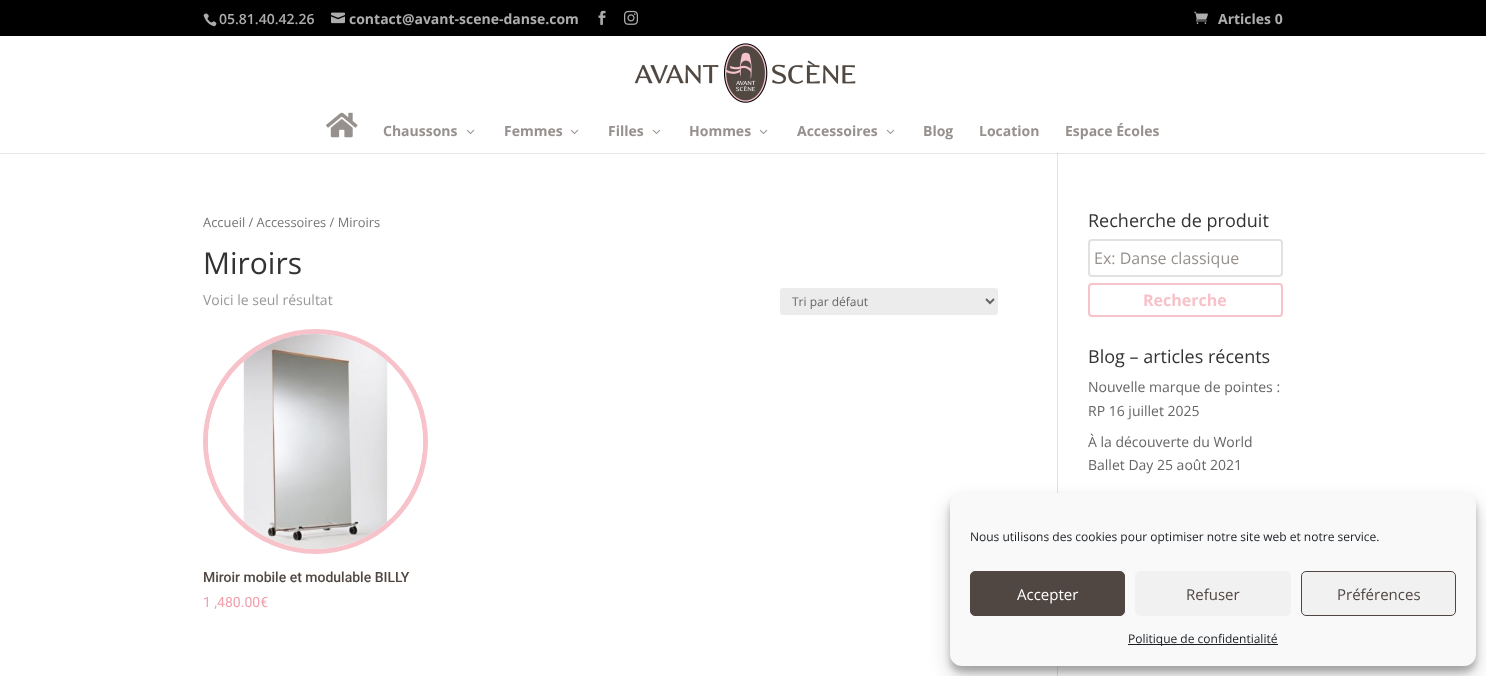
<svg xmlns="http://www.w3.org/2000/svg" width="1486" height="676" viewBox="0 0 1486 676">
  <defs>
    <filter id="blur1" x="-50%" y="-200%" width="200%" height="500%"><feGaussianBlur stdDeviation="3"/></filter>
    <filter id="blur2" x="-50%" y="-200%" width="200%" height="500%"><feGaussianBlur stdDeviation="10"/></filter>
  </defs>
  <rect width="100%" height="100%" fill="#ffffff"/>
  <rect x="0" y="153" width="1486" height="1" fill="#e6e6e6"/>
  <rect x="0" y="0" width="1486" height="36" fill="#000000"/>
  <image x="203" y="13" width="14" height="14" href="img1.png"/>
  <text x="219" y="24" font-family="Open Sans" font-size="14" font-weight="600" fill="#adadad">05.81.40.42.26</text>
  <image x="331" y="12" width="14" height="12" href="img2.png"/>
  <text x="349" y="24" font-family="Open Sans" font-size="14" font-weight="bold" fill="#adadad">contact@avant-scene-danse.com</text>
  <image x="598" y="10" width="8" height="15" href="img3.png"/>
  <image x="624" y="10" width="14" height="15" href="img4.png"/>
  <image x="1194" y="11" width="14" height="13" href="img5.png"/>
  <text x="1218" y="24" font-family="Open Sans" font-size="14" font-weight="bold" fill="#adadad">Articles 0</text>
  <image x="634" y="43" width="222" height="60" href="img6.png"/>
  <image x="326" y="112" width="32" height="26" href="img7.png"/>
  <text x="383" y="136" font-family="Open Sans" font-size="14" font-weight="bold" fill="#96918e">Chaussons</text>
  <image x="466" y="129" width="9" height="5" href="img8.png"/>
  <text x="504" y="136" font-family="Open Sans" font-size="14" font-weight="bold" fill="#96918e">Femmes</text>
  <image x="570" y="129" width="9" height="5" href="img8.png"/>
  <text x="608" y="136" font-family="Open Sans" font-size="14" font-weight="bold" fill="#96918e">Filles</text>
  <image x="652" y="129" width="9" height="5" href="img8.png"/>
  <text x="689" y="136" font-family="Open Sans" font-size="14" font-weight="bold" fill="#96918e">Hommes</text>
  <image x="759" y="129" width="9" height="5" href="img8.png"/>
  <text x="797" y="136" font-family="Open Sans" font-size="14" font-weight="bold" fill="#96918e">Accessoires</text>
  <image x="886" y="129" width="9" height="5" href="img8.png"/>
  <text x="923" y="136" font-family="Open Sans" font-size="14" font-weight="bold" fill="#96918e">Blog</text>
  <text x="979" y="136" font-family="Open Sans" font-size="14" font-weight="bold" fill="#96918e">Location</text>
  <text x="1065" y="136" font-family="Open Sans" font-size="14" font-weight="bold" fill="#96918e">Espace Écoles</text>
  <rect x="1057" y="153" width="1" height="523" fill="#e2e2e2"/>
  <rect x="1057" y="153" width="1" height="1" fill="#cbcbcb"/>
  <text x="203" y="227" font-family="Open Sans" font-size="12.9" fill="#767676">Accueil / Accessoires / Miroirs</text>
  <text x="203" y="274" font-family="Open Sans" font-size="30" fill="#333333">Miroirs</text>
  <text x="203" y="305" font-family="Open Sans" font-size="14" fill="#999999">Voici le seul résultat</text>
  <rect x="780" y="288" width="218" height="27" rx="3" fill="#ececec"/>
  <path d="M986 299L990 303L994 299" fill="none" stroke="#666666" stroke-width="2"/>
  <text x="792" y="306" font-family="Open Sans" font-size="12" fill="#666666">Tri par défaut</text>
  <circle cx="315.5" cy="441.5" r="110" fill="none" stroke="#f7c2ca" stroke-width="5"/>
  <image x="208" y="334" width="215" height="215" href="img9.png"/>
  <text x="203" y="582" font-family="Roboto" font-size="14" font-weight="500" fill="#504742">Miroir mobile et modulable BILLY</text>
  <text x="203" y="607" font-family="Roboto" font-size="14" fill="#f29fab">1 ,480.00€</text>
  <text x="1088" y="227" font-family="Open Sans" font-size="18" fill="#333333">Recherche de produit</text>
  <rect x="1089" y="240" width="193" height="36" rx="3" fill="none" stroke="#e1e1e1" stroke-width="2"/>
  <text x="1094" y="264" font-family="Open Sans" font-size="16" fill="#96918e">Ex: Danse classique</text>
  <rect x="1089" y="284" width="193" height="32" rx="3" fill="none" stroke="#f7c2ca" stroke-width="2"/>
  <text x="1143" y="306" font-family="Open Sans" font-size="16" font-weight="bold" fill="#f7c2ca">Recherche</text>
  <text x="1088" y="363" font-family="Open Sans" font-size="18" fill="#333333">Blog – articles récents</text>
  <text x="1088" y="392" font-family="Open Sans" font-size="14" fill="#666666">Nouvelle marque de pointes :</text>
  <text x="1088" y="416" font-family="Open Sans" font-size="14" fill="#666666">RP 16 juillet 2025</text>
  <text x="1088" y="447" font-family="Open Sans" font-size="14" fill="#666666">À la découverte du World</text>
  <text x="1088" y="470" font-family="Open Sans" font-size="14" fill="#666666">Ballet Day 25 août 2021</text>
  <rect x="950" y="499" width="526" height="173" rx="12" fill="#000000" fill-opacity="0.23" filter="url(#blur1)"/>
  <rect x="950" y="503" width="526" height="173" rx="12" fill="#000000" fill-opacity="0.19" filter="url(#blur2)"/>
  <rect x="950" y="493" width="526" height="173" rx="12" fill="#f9f9f9"/>
  <text x="970" y="541" font-family="Open Sans" font-size="12" fill="#191e23">Nous utilisons des cookies pour optimiser notre site web et notre service.</text>
  <rect x="970.5" y="571.5" width="154" height="44" rx="4.5" fill="#504742" stroke="#504742"/>
  <text x="1017" y="600" font-family="Open Sans" font-size="15" fill="#ffffff">Accepter</text>
  <rect x="1135" y="571" width="156" height="45" rx="5" fill="#f1f1f1"/>
  <text x="1186" y="600" font-family="Open Sans" font-size="15" fill="#504742">Refuser</text>
  <rect x="1301.5" y="571.5" width="154" height="44" rx="4.5" fill="#f1f1f1" stroke="#504742"/>
  <text x="1337" y="600" font-family="Open Sans" font-size="15" fill="#504742">Préférences</text>
  <rect x="1128" y="644" width="150" height="1" fill="#191e23"/>
  <text x="1128" y="643" font-family="Open Sans" font-size="12" fill="#191e23">Politique de confidentialité</text>
</svg>
